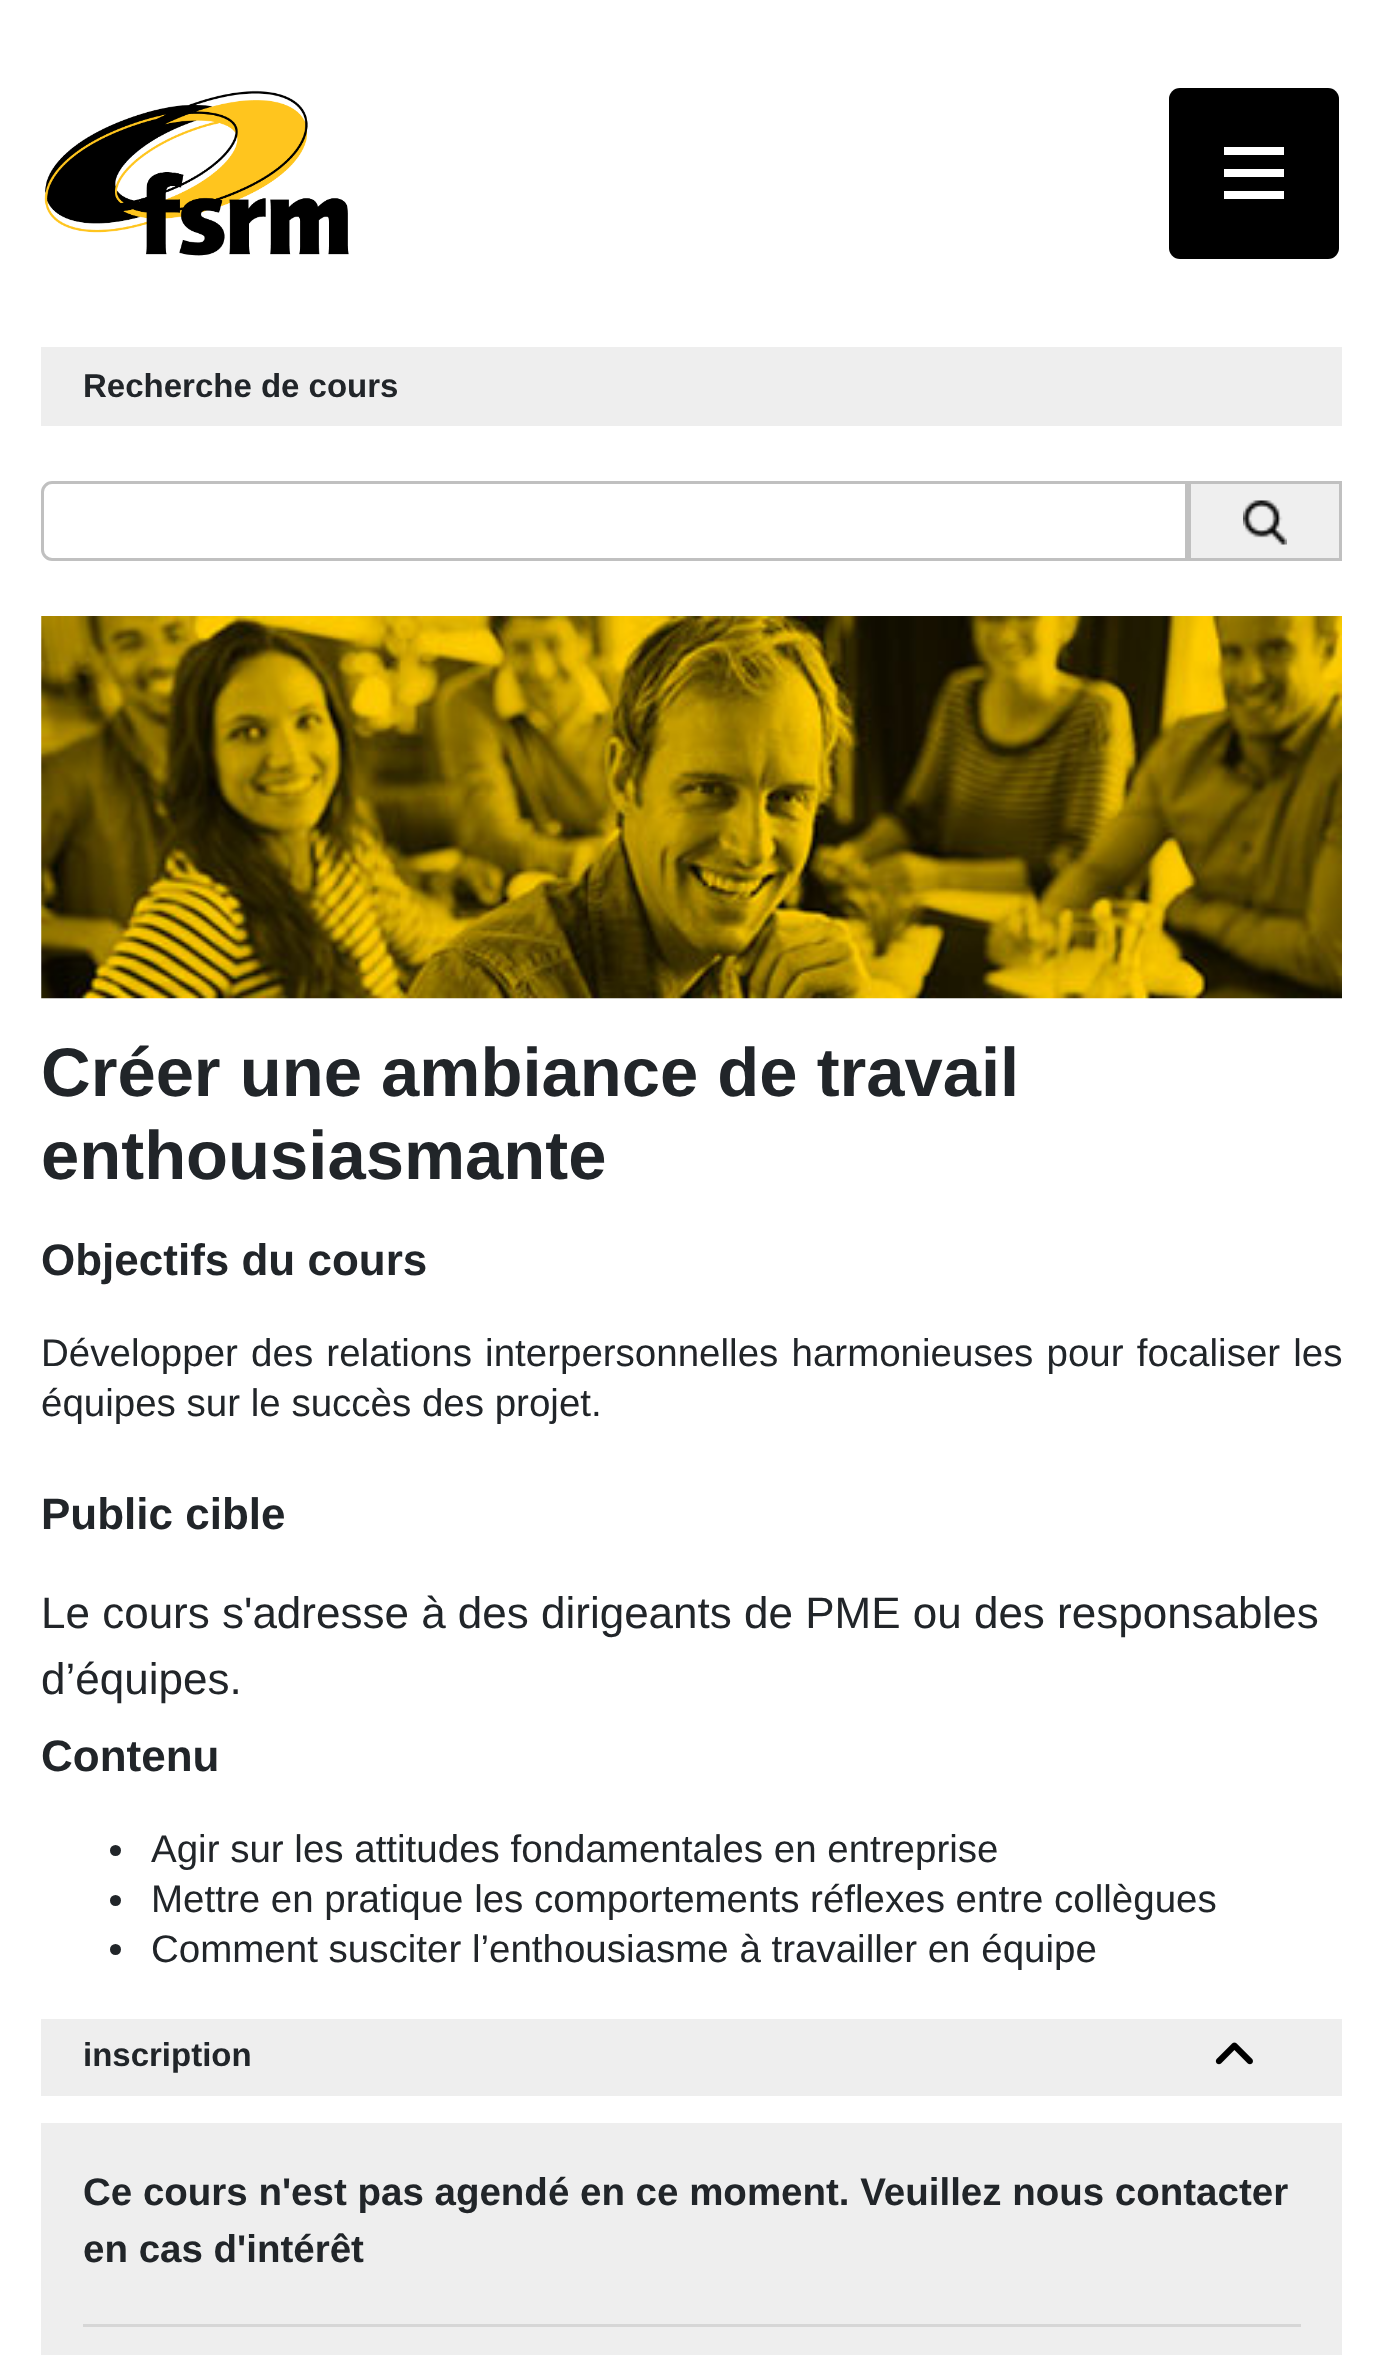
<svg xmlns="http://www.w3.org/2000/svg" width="1382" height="2355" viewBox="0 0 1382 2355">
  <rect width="100%" height="100%" fill="#ffffff"/>
  <image x="44" y="90" width="305" height="166" href="img1.png"/>
  <rect x="1169" y="88" width="170" height="171" rx="11" fill="#000000"/>
  <rect x="1170.5" y="89.5" width="167" height="168" rx="9.5" fill="none" stroke="#000000" stroke-opacity="0.1" stroke-width="3"/>
  <path d="M1224 151H1284M1224 173H1284M1224 195H1284" fill="none" stroke="#ffffff" stroke-width="8.2"/>
  <rect x="41" y="347" width="1301" height="79" fill="#eeeeee"/>
  <text x="83" y="397" font-family="Liberation Sans" font-size="33" font-weight="bold" fill="#212529">Recherche de cours</text>
  <path d="M52 482.5H1186.5V559.5H52C47 559.5 42.5 555 42.5 550V492C42.5 487 47 482.5 52 482.5Z" fill="none" stroke="#c0c0c0" stroke-width="3"/>
  <rect x="1189.5" y="482.5" width="151" height="77" fill="#efefef" stroke="#c0c0c0" stroke-width="3"/>
  <image x="1243" y="500" width="44" height="45" href="img2.png"/>
  <image x="41" y="616" width="1301" height="383" href="img3.png"/>
  <text x="41" y="1096" font-family="Liberation Sans" font-size="68.75" font-weight="bold" fill="#212529">Créer une ambiance de travail</text>
  <text x="41" y="1179" font-family="Liberation Sans" font-size="68.75" font-weight="bold" fill="#212529">enthousiasmante</text>
  <text x="41" y="1275" font-family="Liberation Sans" font-size="44" font-weight="bold" fill="#212529">Objectifs du cours</text>
  <text x="41" y="1366" word-spacing="2.5" font-family="Liberation Sans" font-size="38.5" fill="#212529">Développer des relations interpersonnelles harmonieuses pour focaliser les</text>
  <text x="41" y="1416" font-family="Liberation Sans" font-size="38.5" fill="#212529">équipes sur le succès des projet.</text>
  <text x="41" y="1529" font-family="Liberation Sans" font-size="44" font-weight="bold" fill="#212529">Public cible</text>
  <text x="41" y="1628" font-family="Liberation Sans" font-size="44" fill="#212529">Le cours s'adresse à des dirigeants de PME ou des responsables</text>
  <text x="41" y="1694" font-family="Liberation Sans" font-size="44" fill="#212529">d’équipes.</text>
  <text x="41" y="1771" font-family="Liberation Sans" font-size="44" font-weight="bold" fill="#212529">Contenu</text>
  <circle cx="115.5" cy="1850.5" r="5.5" fill="#212529"/>
  <text x="151" y="1862" font-family="Liberation Sans" font-size="38.5" fill="#212529">Agir sur les attitudes fondamentales en entreprise</text>
  <circle cx="115.5" cy="1900.5" r="5.5" fill="#212529"/>
  <text x="151" y="1912" font-family="Liberation Sans" font-size="38.5" fill="#212529">Mettre en pratique les comportements réflexes entre collègues</text>
  <circle cx="115.5" cy="1949.5" r="5.5" fill="#212529"/>
  <text x="151" y="1962" font-family="Liberation Sans" font-size="38.5" fill="#212529">Comment susciter l’enthousiasme à travailler en équipe</text>
  <rect x="41" y="2019" width="1301" height="77" fill="#eeeeee"/>
  <text x="83" y="2066" font-family="Liberation Sans" font-size="33" font-weight="bold" fill="#212529">inscription</text>
  <image x="1215" y="2042" width="38" height="23" href="img4.png"/>
  <rect x="41" y="2123" width="1301" height="232" fill="#eeeeee"/>
  <text x="83" y="2205" font-family="Liberation Sans" font-size="38.5" font-weight="bold" fill="#212529">Ce cours n'est pas agendé en ce moment. Veuillez nous contacter</text>
  <text x="83" y="2262" font-family="Liberation Sans" font-size="38.5" font-weight="bold" fill="#212529">en cas d'intérêt</text>
  <rect x="83" y="2324" width="1218" height="3" fill="#d6d6d6"/>
</svg>
